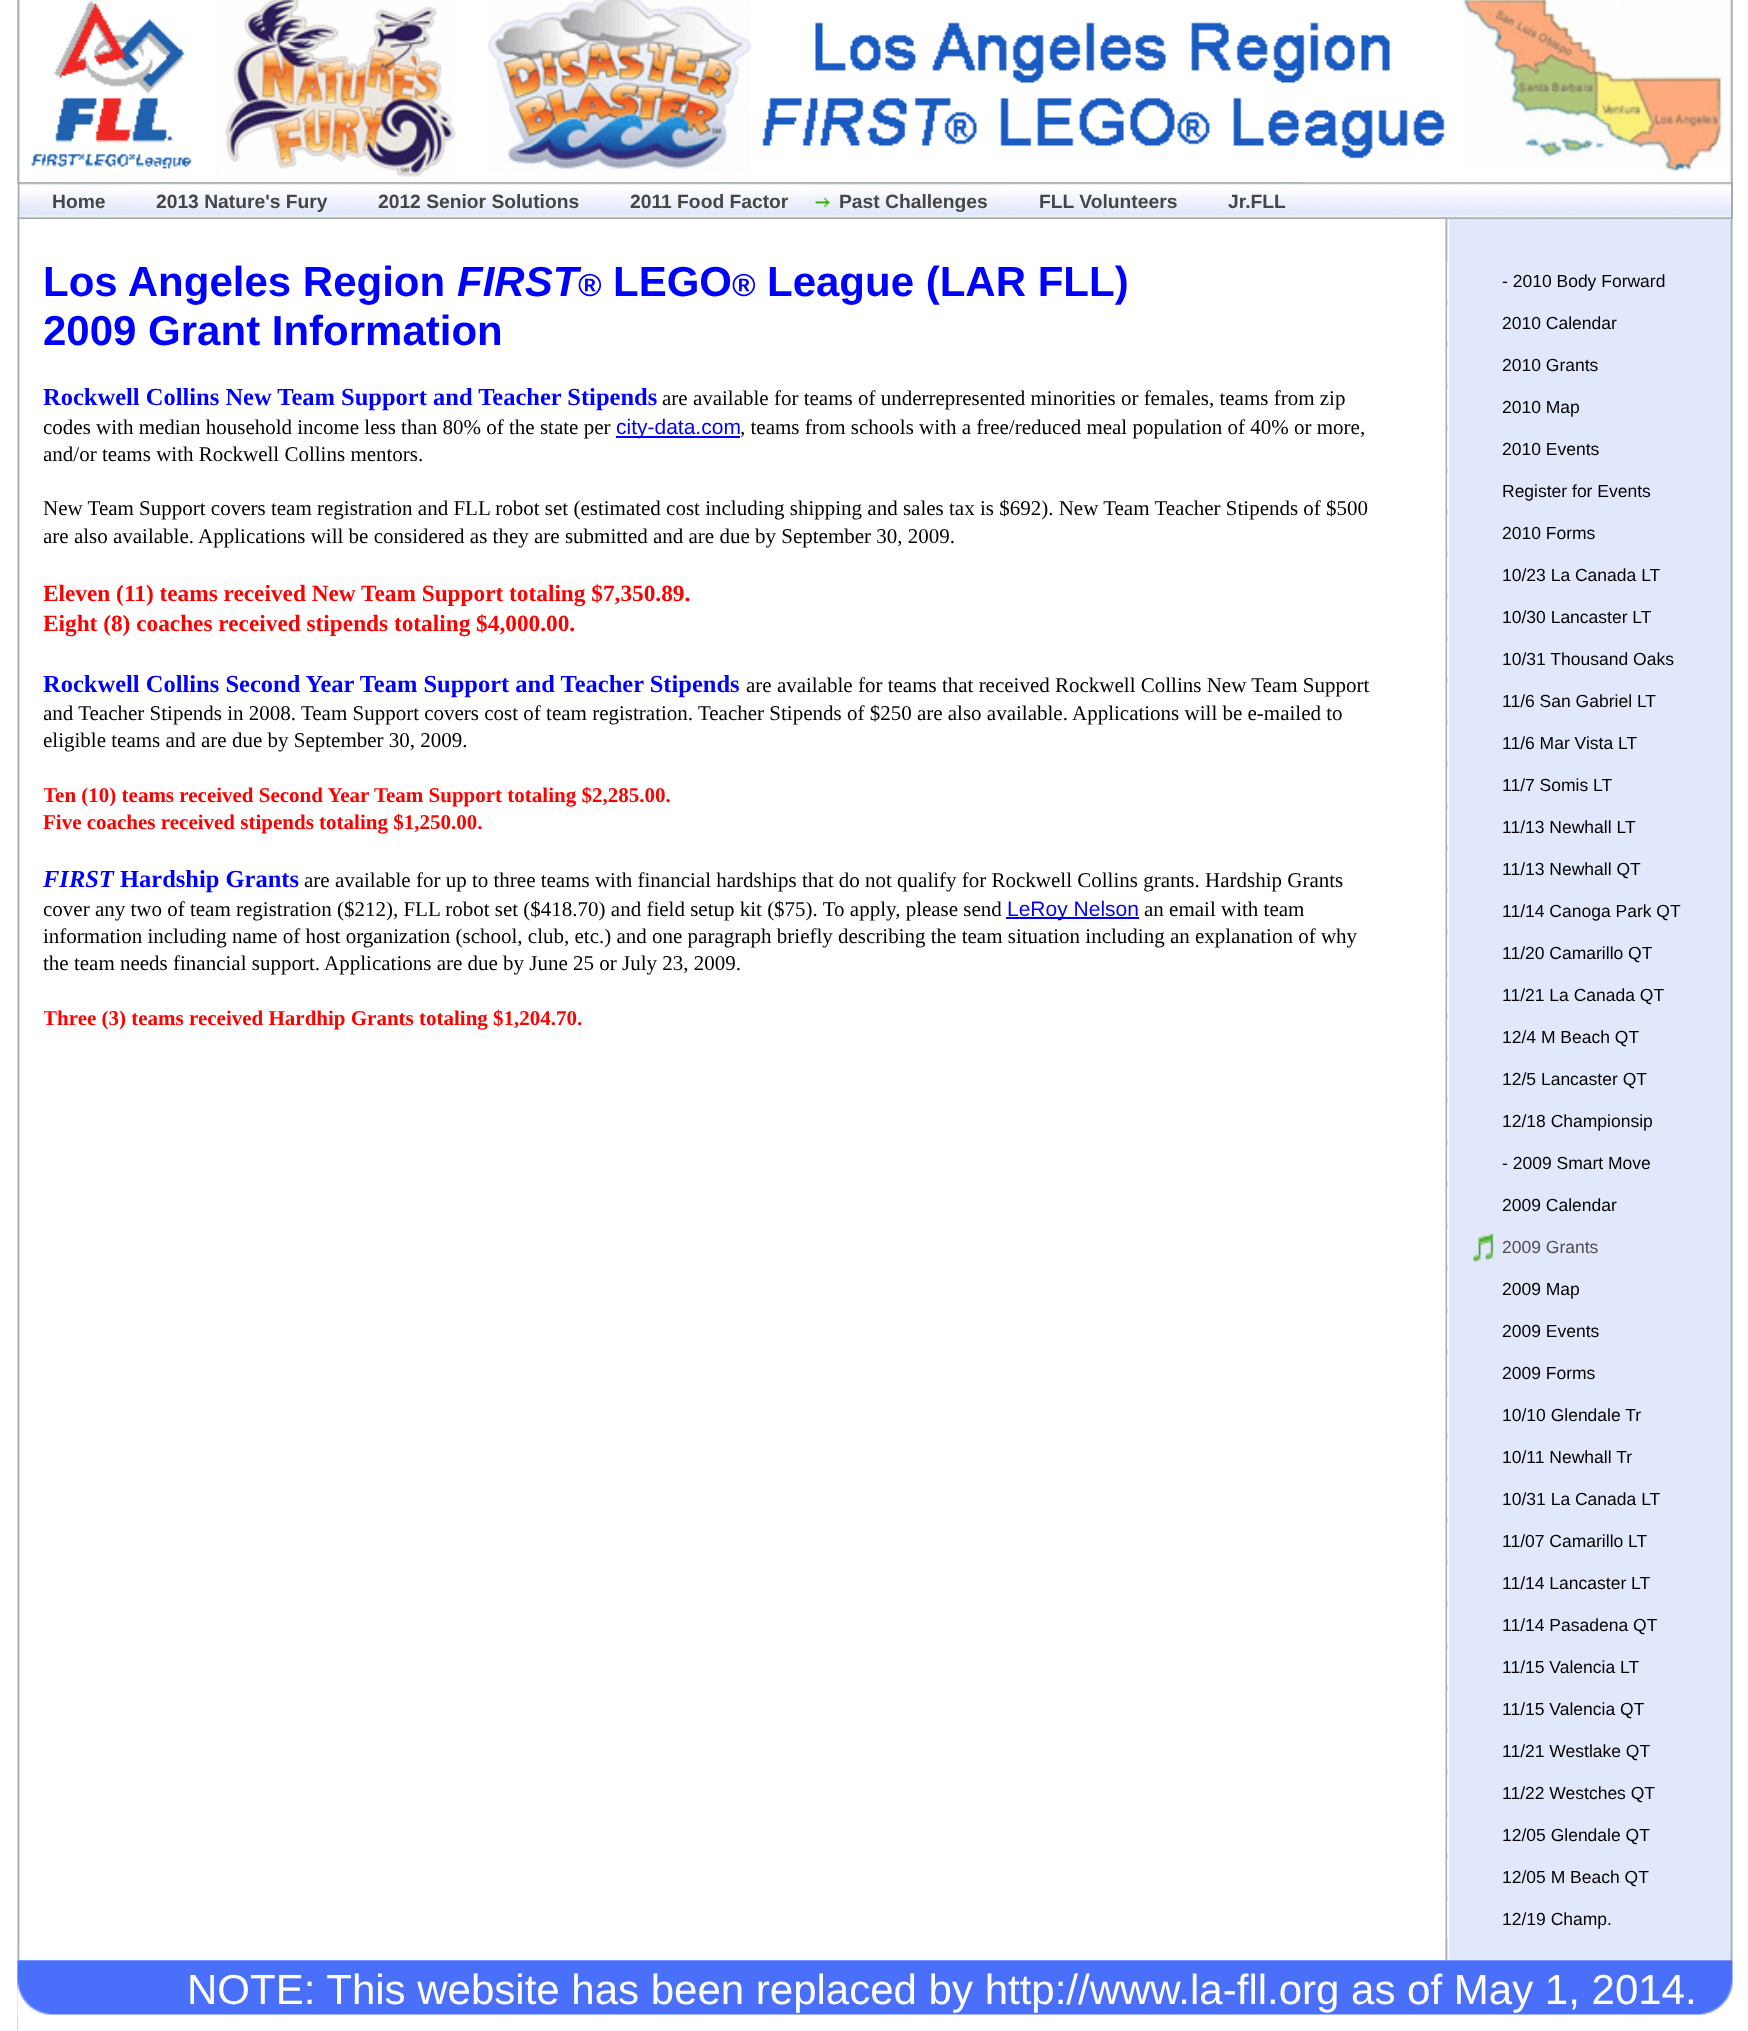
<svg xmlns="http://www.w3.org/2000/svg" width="1748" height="2031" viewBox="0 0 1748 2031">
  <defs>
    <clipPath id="clip1"><rect x="44" y="257" width="1330" height="776"/></clipPath>
  </defs>
  <rect width="100%" height="100%" fill="#ffffff"/>
  <image x="17" y="0" width="1716" height="2031" href="img1.png"/>
  <image x="17" y="0" width="1716" height="183" href="img2.png"/>
  <image x="31" y="0" width="1694" height="178" href="img3.png"/>
  <image x="17" y="182" width="1714" height="37" href="img4.png"/>
  <rect x="1731" y="182" width="2" height="37" fill="#a4abad"/>
  <rect x="18" y="182" width="2" height="37" fill="#a4abad"/>
  <image x="19" y="182" width="104" height="36" href="img5.png"/>
  <text x="52" y="208" font-family="Liberation Sans" font-size="19.25" font-weight="bold" fill="#454646">Home</text>
  <image x="122" y="182" width="223" height="1" href="img6.png"/>
  <text x="156" y="208" font-family="Liberation Sans" font-size="19.25" font-weight="bold" fill="#454646">2013 Nature's Fury</text>
  <image x="345" y="182" width="252" height="1" href="img7.png"/>
  <text x="378" y="208" font-family="Liberation Sans" font-size="19.25" font-weight="bold" fill="#454646">2012 Senior Solutions</text>
  <rect x="597" y="182" width="208" height="1" fill="#adb4b5"/>
  <text x="630" y="208" font-family="Liberation Sans" font-size="19.25" font-weight="bold" fill="#454646">2011 Food Factor</text>
  <image x="805" y="182" width="200" height="26" href="img8.png"/>
  <text x="839" y="208" font-family="Liberation Sans" font-size="19.25" font-weight="bold" fill="#454646">Past Challenges</text>
  <image x="1004" y="182" width="191" height="1" href="img9.png"/>
  <text x="1039" y="208" font-family="Liberation Sans" font-size="19.25" font-weight="bold" fill="#454646">FLL Volunteers</text>
  <image x="1195" y="182" width="109" height="1" href="img10.png"/>
  <text x="1228" y="208" font-family="Liberation Sans" font-size="19.25" font-weight="bold" fill="#454646">Jr.FLL</text>
  <text x="43" y="296" font-family="Liberation Sans" font-size="42" font-weight="bold" fill="#0000ff">Los Angeles Region</text>
  <text x="457" y="296" font-family="Liberation Sans" font-size="42" font-weight="bold" font-style="italic" fill="#0000ff">FIRST</text>
  <text x="578" y="296" font-family="Liberation Sans" font-size="32" font-weight="bold" fill="#0000ff">®</text>
  <text x="613" y="296" font-family="Liberation Sans" font-size="42" font-weight="bold" fill="#0000ff">LEGO</text>
  <text x="732" y="296" font-family="Liberation Sans" font-size="32" font-weight="bold" fill="#0000ff">®</text>
  <text x="767" y="296" font-family="Liberation Sans" font-size="42" font-weight="bold" fill="#0000ff">League (LAR FLL)</text>
  <text x="43" y="345" font-family="Liberation Sans" font-size="42" font-weight="bold" fill="#0000ff">2009 Grant Information</text>
  <text x="43" y="405" font-family="Liberation Serif" font-size="24.5" font-weight="bold" fill="#0000ff">Rockwell Collins New Team Support and Teacher Stipends</text>
  <text x="662" y="405" font-family="Liberation Serif" font-size="21" fill="#000000">are available for teams of underrepresented minorities or females, teams from zip</text>
  <g clip-path="url(#clip1)">
    <text x="43" y="434" font-family="Liberation Serif" font-size="21" fill="#000000">codes with median household income less than 80% of the state per</text>
  </g>
  <rect x="616" y="436" width="124" height="2" fill="#0000ff"/>
  <text x="616" y="434" font-family="Liberation Sans" font-size="21" fill="#0000ff">city-data.com</text>
  <text x="740" y="434" font-family="Liberation Serif" font-size="21" fill="#000000">, teams from schools with a free/reduced meal population of 40% or more,</text>
  <g clip-path="url(#clip1)">
    <text x="43" y="461" font-family="Liberation Serif" font-size="21" fill="#000000">and/or teams with Rockwell Collins mentors.</text>
  </g>
  <text x="43" y="515" font-family="Liberation Serif" font-size="21" fill="#000000">New Team Support covers team registration and FLL robot set (estimated cost including shipping and sales tax is $692). New Team Teacher Stipends of $500</text>
  <g clip-path="url(#clip1)">
    <text x="43" y="543" font-family="Liberation Serif" font-size="21" fill="#000000">are also available. Applications will be considered as they are submitted and are due by September 30, 2009.</text>
    <text x="43" y="601" font-family="Liberation Serif" font-size="23.3" font-weight="bold" fill="#ff0000">Eleven (11) teams received New Team Support totaling $7,350.89.</text>
    <text x="43" y="631" font-family="Liberation Serif" font-size="23.3" font-weight="bold" fill="#ff0000">Eight (8) coaches received stipends totaling $4,000.00.</text>
  </g>
  <text x="43" y="692" font-family="Liberation Serif" font-size="24.5" font-weight="bold" fill="#0000ff">Rockwell Collins Second Year Team Support and Teacher Stipends</text>
  <text x="746" y="692" font-family="Liberation Serif" font-size="21" fill="#000000">are available for teams that received Rockwell Collins New Team Support</text>
  <g clip-path="url(#clip1)">
    <text x="43" y="720" font-family="Liberation Serif" font-size="21" fill="#000000">and Teacher Stipends in 2008. Team Support covers cost of team registration. Teacher Stipends of $250 are also available. Applications will be e-mailed to</text>
    <text x="43" y="747" font-family="Liberation Serif" font-size="21" fill="#000000">eligible teams and are due by September 30, 2009.</text>
    <text x="43" y="802" font-family="Liberation Serif" font-size="21" font-weight="bold" fill="#ff0000">Ten (10) teams received Second Year Team Support totaling $2,285.00.</text>
  </g>
  <text x="43" y="829" font-family="Liberation Serif" font-size="21" font-weight="bold" fill="#ff0000">Five coaches received stipends totaling $1,250.00.</text>
  <text x="43" y="887" font-family="Liberation Serif" font-size="24.5" font-weight="bold" font-style="italic" fill="#0000ff">FIRST</text>
  <text x="120" y="887" font-family="Liberation Serif" font-size="24.5" font-weight="bold" fill="#0000ff">Hardship Grants</text>
  <text x="304" y="887" font-family="Liberation Serif" font-size="21" fill="#000000">are available for up to three teams with financial hardships that do not qualify for Rockwell Collins grants. Hardship Grants</text>
  <g clip-path="url(#clip1)">
    <text x="43" y="916" font-family="Liberation Serif" font-size="21" fill="#000000">cover any two of team registration ($212), FLL robot set ($418.70) and field setup kit ($75). To apply, please send</text>
  </g>
  <rect x="1006" y="917" width="133" height="2" fill="#0000ff"/>
  <text x="1007" y="916" font-family="Liberation Sans" font-size="21" fill="#0000ff">LeRoy Nelson</text>
  <text x="1144" y="916" font-family="Liberation Serif" font-size="21" fill="#000000">an email with team</text>
  <text x="43" y="943" font-family="Liberation Serif" font-size="21" fill="#000000">information including name of host organization (school, club, etc.) and one paragraph briefly describing the team situation including an explanation of why</text>
  <text x="43" y="970" font-family="Liberation Serif" font-size="21" fill="#000000">the team needs financial support. Applications are due by June 25 or July 23, 2009.</text>
  <g clip-path="url(#clip1)">
    <text x="43" y="1025" font-family="Liberation Serif" font-size="21" font-weight="bold" fill="#ff0000">Three (3) teams received Hardhip Grants totaling $1,204.70.</text>
  </g>
  <image x="1447" y="262" width="1" height="38" href="img11.png"/>
  <text x="1502" y="287" font-family="Liberation Sans" font-size="17.5" fill="#000000">- 2010 Body Forward</text>
  <image x="1447" y="304" width="1" height="38" href="img11.png"/>
  <text x="1502" y="329" font-family="Liberation Sans" font-size="17.5" fill="#000000">2010 Calendar</text>
  <image x="1447" y="346" width="1" height="38" href="img11.png"/>
  <text x="1502" y="371" font-family="Liberation Sans" font-size="17.5" fill="#000000">2010 Grants</text>
  <image x="1447" y="388" width="1" height="38" href="img11.png"/>
  <text x="1502" y="413" font-family="Liberation Sans" font-size="17.5" fill="#000000">2010 Map</text>
  <image x="1447" y="430" width="1" height="38" href="img11.png"/>
  <text x="1502" y="455" font-family="Liberation Sans" font-size="17.5" fill="#000000">2010 Events</text>
  <image x="1447" y="472" width="1" height="38" href="img11.png"/>
  <text x="1502" y="497" font-family="Liberation Sans" font-size="17.5" fill="#000000">Register for Events</text>
  <image x="1447" y="514" width="1" height="38" href="img11.png"/>
  <text x="1502" y="539" font-family="Liberation Sans" font-size="17.5" fill="#000000">2010 Forms</text>
  <image x="1447" y="556" width="1" height="38" href="img11.png"/>
  <text x="1502" y="581" font-family="Liberation Sans" font-size="17.5" fill="#000000">10/23 La Canada LT</text>
  <image x="1447" y="598" width="1" height="38" href="img11.png"/>
  <text x="1502" y="623" font-family="Liberation Sans" font-size="17.5" fill="#000000">10/30 Lancaster LT</text>
  <image x="1447" y="640" width="1" height="38" href="img11.png"/>
  <text x="1502" y="665" font-family="Liberation Sans" font-size="17.5" fill="#000000">10/31 Thousand Oaks</text>
  <image x="1447" y="682" width="1" height="38" href="img11.png"/>
  <text x="1502" y="707" font-family="Liberation Sans" font-size="17.5" fill="#000000">11/6 San Gabriel LT</text>
  <image x="1447" y="724" width="1" height="38" href="img11.png"/>
  <text x="1502" y="749" font-family="Liberation Sans" font-size="17.5" fill="#000000">11/6 Mar Vista LT</text>
  <image x="1447" y="766" width="1" height="38" href="img11.png"/>
  <text x="1502" y="791" font-family="Liberation Sans" font-size="17.5" fill="#000000">11/7 Somis LT</text>
  <image x="1447" y="808" width="1" height="38" href="img11.png"/>
  <text x="1502" y="833" font-family="Liberation Sans" font-size="17.5" fill="#000000">11/13 Newhall LT</text>
  <image x="1447" y="850" width="1" height="38" href="img11.png"/>
  <text x="1502" y="875" font-family="Liberation Sans" font-size="17.5" fill="#000000">11/13 Newhall QT</text>
  <image x="1447" y="892" width="1" height="38" href="img11.png"/>
  <text x="1502" y="917" font-family="Liberation Sans" font-size="17.5" fill="#000000">11/14 Canoga Park QT</text>
  <image x="1447" y="934" width="1" height="38" href="img11.png"/>
  <text x="1502" y="959" font-family="Liberation Sans" font-size="17.5" fill="#000000">11/20 Camarillo QT</text>
  <image x="1447" y="976" width="1" height="38" href="img11.png"/>
  <text x="1502" y="1001" font-family="Liberation Sans" font-size="17.5" fill="#000000">11/21 La Canada QT</text>
  <image x="1447" y="1018" width="1" height="38" href="img11.png"/>
  <text x="1502" y="1043" font-family="Liberation Sans" font-size="17.5" fill="#000000">12/4 M Beach QT</text>
  <image x="1447" y="1060" width="1" height="38" href="img11.png"/>
  <text x="1502" y="1085" font-family="Liberation Sans" font-size="17.5" fill="#000000">12/5 Lancaster QT</text>
  <image x="1447" y="1102" width="1" height="38" href="img11.png"/>
  <text x="1502" y="1127" font-family="Liberation Sans" font-size="17.5" fill="#000000">12/18 Championsip</text>
  <image x="1447" y="1144" width="1" height="38" href="img11.png"/>
  <text x="1502" y="1169" font-family="Liberation Sans" font-size="17.5" fill="#000000">- 2009 Smart Move</text>
  <image x="1447" y="1186" width="1" height="38" href="img11.png"/>
  <text x="1502" y="1211" font-family="Liberation Sans" font-size="17.5" fill="#000000">2009 Calendar</text>
  <image x="1447" y="1228" width="47" height="38" href="img12.png"/>
  <text x="1502" y="1253" font-family="Liberation Sans" font-size="17.5" fill="#4d4d4d">2009 Grants</text>
  <image x="1447" y="1270" width="1" height="38" href="img11.png"/>
  <text x="1502" y="1295" font-family="Liberation Sans" font-size="17.5" fill="#000000">2009 Map</text>
  <image x="1447" y="1312" width="1" height="38" href="img11.png"/>
  <text x="1502" y="1337" font-family="Liberation Sans" font-size="17.5" fill="#000000">2009 Events</text>
  <image x="1447" y="1354" width="1" height="38" href="img11.png"/>
  <text x="1502" y="1379" font-family="Liberation Sans" font-size="17.5" fill="#000000">2009 Forms</text>
  <image x="1447" y="1396" width="1" height="38" href="img11.png"/>
  <text x="1502" y="1421" font-family="Liberation Sans" font-size="17.5" fill="#000000">10/10 Glendale Tr</text>
  <image x="1447" y="1438" width="1" height="38" href="img11.png"/>
  <text x="1502" y="1463" font-family="Liberation Sans" font-size="17.5" fill="#000000">10/11 Newhall Tr</text>
  <image x="1447" y="1480" width="1" height="38" href="img11.png"/>
  <text x="1502" y="1505" font-family="Liberation Sans" font-size="17.5" fill="#000000">10/31 La Canada LT</text>
  <image x="1447" y="1522" width="1" height="38" href="img11.png"/>
  <text x="1502" y="1547" font-family="Liberation Sans" font-size="17.5" fill="#000000">11/07 Camarillo LT</text>
  <image x="1447" y="1564" width="1" height="38" href="img11.png"/>
  <text x="1502" y="1589" font-family="Liberation Sans" font-size="17.5" fill="#000000">11/14 Lancaster LT</text>
  <image x="1447" y="1606" width="1" height="38" href="img11.png"/>
  <text x="1502" y="1631" font-family="Liberation Sans" font-size="17.5" fill="#000000">11/14 Pasadena QT</text>
  <image x="1447" y="1648" width="1" height="38" href="img11.png"/>
  <text x="1502" y="1673" font-family="Liberation Sans" font-size="17.5" fill="#000000">11/15 Valencia LT</text>
  <image x="1447" y="1690" width="1" height="38" href="img11.png"/>
  <text x="1502" y="1715" font-family="Liberation Sans" font-size="17.5" fill="#000000">11/15 Valencia QT</text>
  <image x="1447" y="1732" width="1" height="38" href="img11.png"/>
  <text x="1502" y="1757" font-family="Liberation Sans" font-size="17.5" fill="#000000">11/21 Westlake QT</text>
  <image x="1447" y="1774" width="1" height="38" href="img11.png"/>
  <text x="1502" y="1799" font-family="Liberation Sans" font-size="17.5" fill="#000000">11/22 Westches QT</text>
  <image x="1447" y="1816" width="1" height="38" href="img11.png"/>
  <text x="1502" y="1841" font-family="Liberation Sans" font-size="17.5" fill="#000000">12/05 Glendale QT</text>
  <image x="1447" y="1858" width="1" height="38" href="img11.png"/>
  <text x="1502" y="1883" font-family="Liberation Sans" font-size="17.5" fill="#000000">12/05 M Beach QT</text>
  <image x="1447" y="1900" width="1" height="38" href="img11.png"/>
  <text x="1502" y="1925" font-family="Liberation Sans" font-size="17.5" fill="#000000">12/19 Champ.</text>
  <rect x="18" y="1960" width="1715" height="71" fill="#ffffff"/>
  <image x="17" y="1960" width="1716" height="55" href="img13.png"/>
  <text x="187" y="2004" font-family="Liberation Sans" font-size="42" fill="#ffffff">NOTE: This website has been replaced by http://www.la-fll.org as of May 1, 2014.</text>
</svg>
